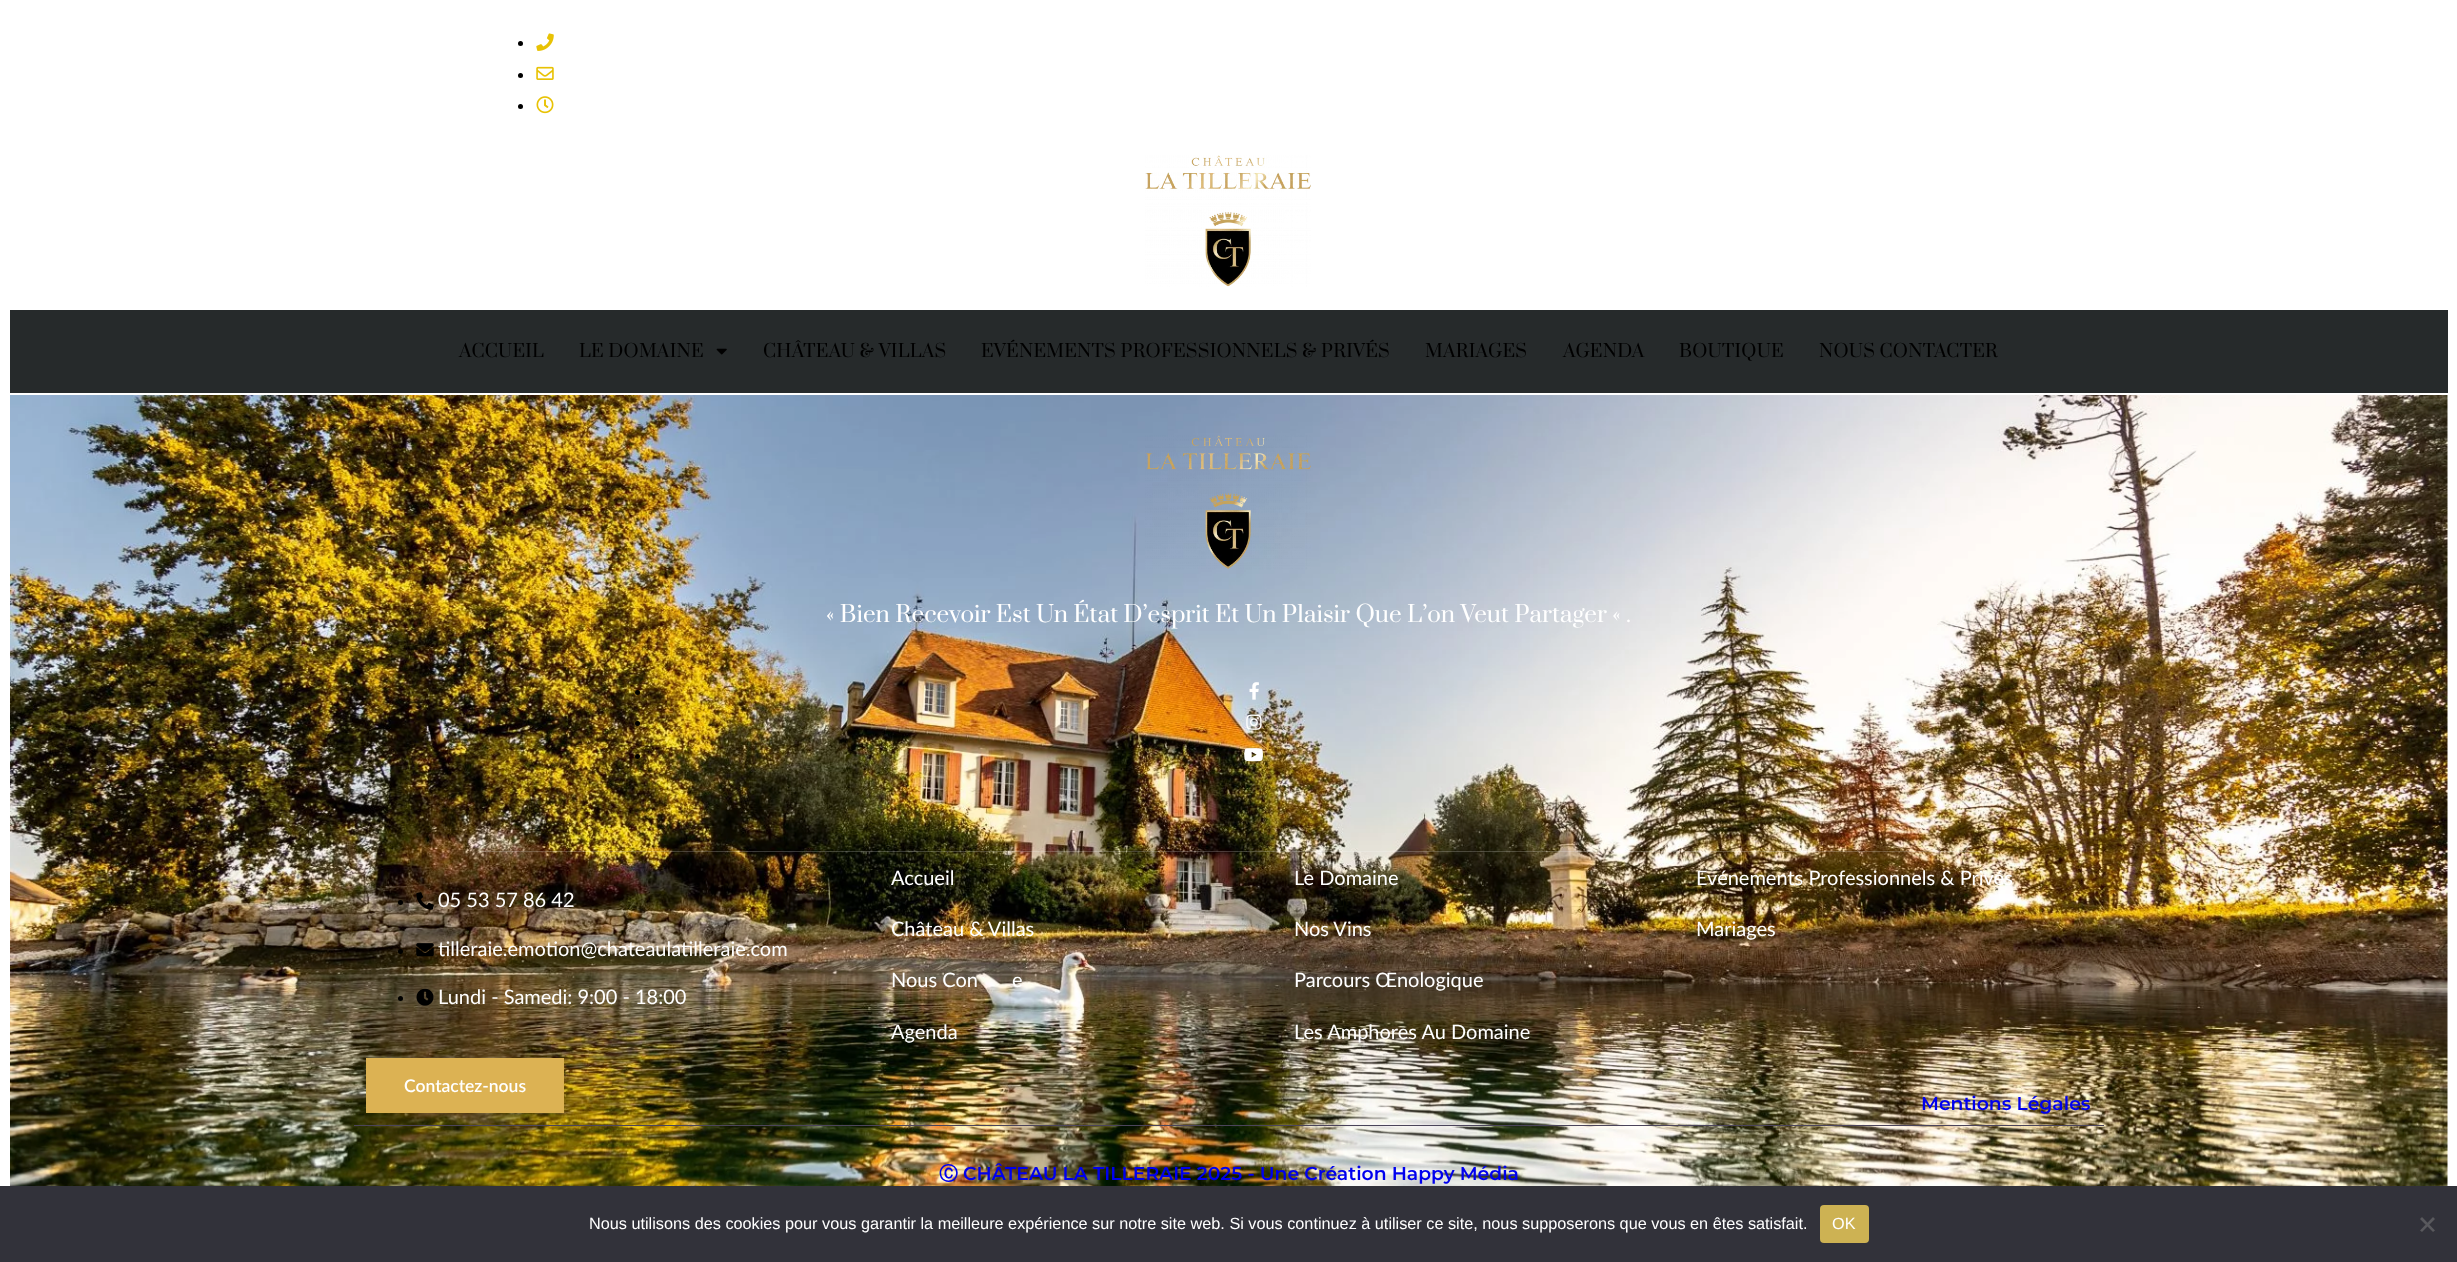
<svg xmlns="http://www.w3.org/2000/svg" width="2457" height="1262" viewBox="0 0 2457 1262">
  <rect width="100%" height="100%" fill="#ffffff"/>
  <circle cx="520.5" cy="43.5" r="2.5" fill="#000000"/>
  <image x="536" y="33" width="18" height="18" href="img1.png"/>
  <circle cx="520.5" cy="75.5" r="2.5" fill="#000000"/>
  <image x="536" y="66" width="18" height="14" href="img2.png"/>
  <circle cx="520.5" cy="106.5" r="2.5" fill="#000000"/>
  <image x="536" y="96" width="18" height="18" href="img3.png"/>
  <image x="1145" y="155" width="166" height="132" href="img4.png"/>
  <rect x="10" y="310" width="2438" height="83" fill="#262a2b"/>
  <text x="459" y="357" font-family="Prata" font-size="17.5" letter-spacing="0.25" fill="#000000">ACCUEIL</text>
  <text x="579" y="357" font-family="Prata" font-size="17.5" letter-spacing="0.25" fill="#000000">LE DOMAINE</text>
  <image x="716" y="348" width="11" height="7" href="img5.png"/>
  <text x="763" y="357" font-family="Prata" font-size="17.5" letter-spacing="0.25" fill="#000000">CHÂTEAU &amp; VILLAS</text>
  <text x="981" y="357" font-family="Prata" font-size="17.5" letter-spacing="0.25" fill="#000000">EVÉNEMENTS PROFESSIONNELS &amp; PRIVÉS</text>
  <text x="1425" y="357" font-family="Prata" font-size="17.5" letter-spacing="0.25" fill="#000000">MARIAGES</text>
  <text x="1563" y="357" font-family="Prata" font-size="17.5" letter-spacing="0.25" fill="#000000">AGENDA</text>
  <text x="1679" y="357" font-family="Prata" font-size="17.5" letter-spacing="0.25" fill="#000000">BOUTIQUE</text>
  <text x="1819" y="357" font-family="Prata" font-size="17.5" letter-spacing="0.25" fill="#000000">NOUS CONTACTER</text>
  <image x="10" y="395" width="2438" height="791" href="img6.png"/>
  <rect x="479" y="851" width="1500" height="1" fill="#ffffff" fill-opacity="0.2"/>
  <image x="1145" y="435" width="166" height="134" href="img7.png"/>
  <text x="826" y="622" font-family="Prata" font-size="22.5" fill="#ffffff">« Bien Recevoir Est Un État D’esprit Et Un Plaisir Que L’on Veut Partager « .</text>
  <circle cx="637.5" cy="692.5" r="2.5" fill="#000000"/>
  <image x="1249" y="682" width="10" height="18" href="img8.png"/>
  <circle cx="637.5" cy="723.5" r="2.5" fill="#000000"/>
  <image x="1246" y="714" width="16" height="16" href="img9.png"/>
  <circle cx="637.5" cy="756.5" r="2.5" fill="#000000"/>
  <image x="1244" y="748" width="19" height="14" href="img10.png"/>
  <circle cx="400.5" cy="902.5" r="2.5" fill="#000000"/>
  <image x="416" y="892" width="18" height="18" href="img11.png"/>
  <text x="438" y="907" font-family="Lato" font-size="20" fill="#ffffff">05 53 57 86 42</text>
  <circle cx="400.5" cy="951.5" r="2.5" fill="#000000"/>
  <image x="416" y="943" width="18" height="14" href="img12.png"/>
  <text x="438" y="956" font-family="Lato" font-size="20" fill="#ffffff">tilleraie.emotion@chateaulatilleraie.com</text>
  <circle cx="400.5" cy="998.5" r="2.5" fill="#000000"/>
  <image x="416" y="988" width="18" height="18" href="img13.png"/>
  <text x="438" y="1004" font-family="Lato" font-size="20" fill="#ffffff">Lundi - Samedi: 9:00 - 18:00</text>
  <rect x="366" y="1058" width="198" height="55" fill="#dcb253"/>
  <text x="404" y="1092" font-family="Lato" font-size="17.5" font-weight="600" fill="#ffffff">Contactez-nous</text>
  <text x="891" y="885" font-family="Lato" font-size="20" fill="#ffffff">Accueil</text>
  <text x="891" y="936" font-family="Lato" font-size="20" fill="#ffffff">Château &amp; Villas</text>
  <text x="891" y="987" font-family="Lato" font-size="20" fill="#ffffff">Nous Con</text>
  <text x="1012" y="987" font-family="Lato" font-size="20" fill="#ffffff">e</text>
  <text x="891" y="1039" font-family="Lato" font-size="20" fill="#ffffff">Agenda</text>
  <text x="1294" y="885" font-family="Lato" font-size="20" fill="#ffffff">Le Domaine</text>
  <text x="1294" y="936" font-family="Lato" font-size="20" fill="#ffffff">Nos Vins</text>
  <text x="1294" y="987" font-family="Lato" font-size="20" fill="#ffffff">Parcours Œnologique</text>
  <text x="1294" y="1039" font-family="Lato" font-size="20" fill="#ffffff">Les Amphores Au Domaine</text>
  <text x="1696" y="885" font-family="Lato" font-size="20" fill="#ffffff">Evénements Professionnels &amp; Privés</text>
  <text x="1696" y="936" font-family="Lato" font-size="20" fill="#ffffff">Mariages</text>
  <text x="1921" y="1110" font-family="Montserrat" font-size="18.75" font-weight="600" fill="#0000ee">Mentions Légales</text>
  <rect x="354" y="1125" width="1750" height="1" fill="#4b445a"/>
  <text x="939" y="1180" font-family="WenQuanYi Zen Hei" font-size="18.75" font-weight="bold" fill="#0000ee">Ⓒ</text>
  <text x="963" y="1180" font-family="Montserrat" font-size="18.75" font-weight="600" fill="#0000ee">CHÂTEAU LA TILLERAIE 2025 - Une Création Happy Média</text>
  <rect x="0" y="1186" width="2457" height="76" fill="#32323a"/>
  <text x="589" y="1229" font-family="Liberation Sans" font-size="16.25" fill="#ffffff">Nous utilisons des cookies pour vous garantir la meilleure expérience sur notre site web. Si vous continuez à utiliser ce site, nous supposerons que vous en êtes satisfait.</text>
  <rect x="1820" y="1205" width="49" height="38" rx="4" fill="#cdb253"/>
  <text x="1832" y="1229" font-family="Liberation Sans" font-size="16.25" fill="#ffffff">OK</text>
  <path d="M2433 1217L2435 1219L2422 1232L2420 1230.5Z" fill="#59595d"/>
  <path d="M2420 1219L2422 1217L2435 1230.5L2433 1232Z" fill="#59595d"/>
</svg>
